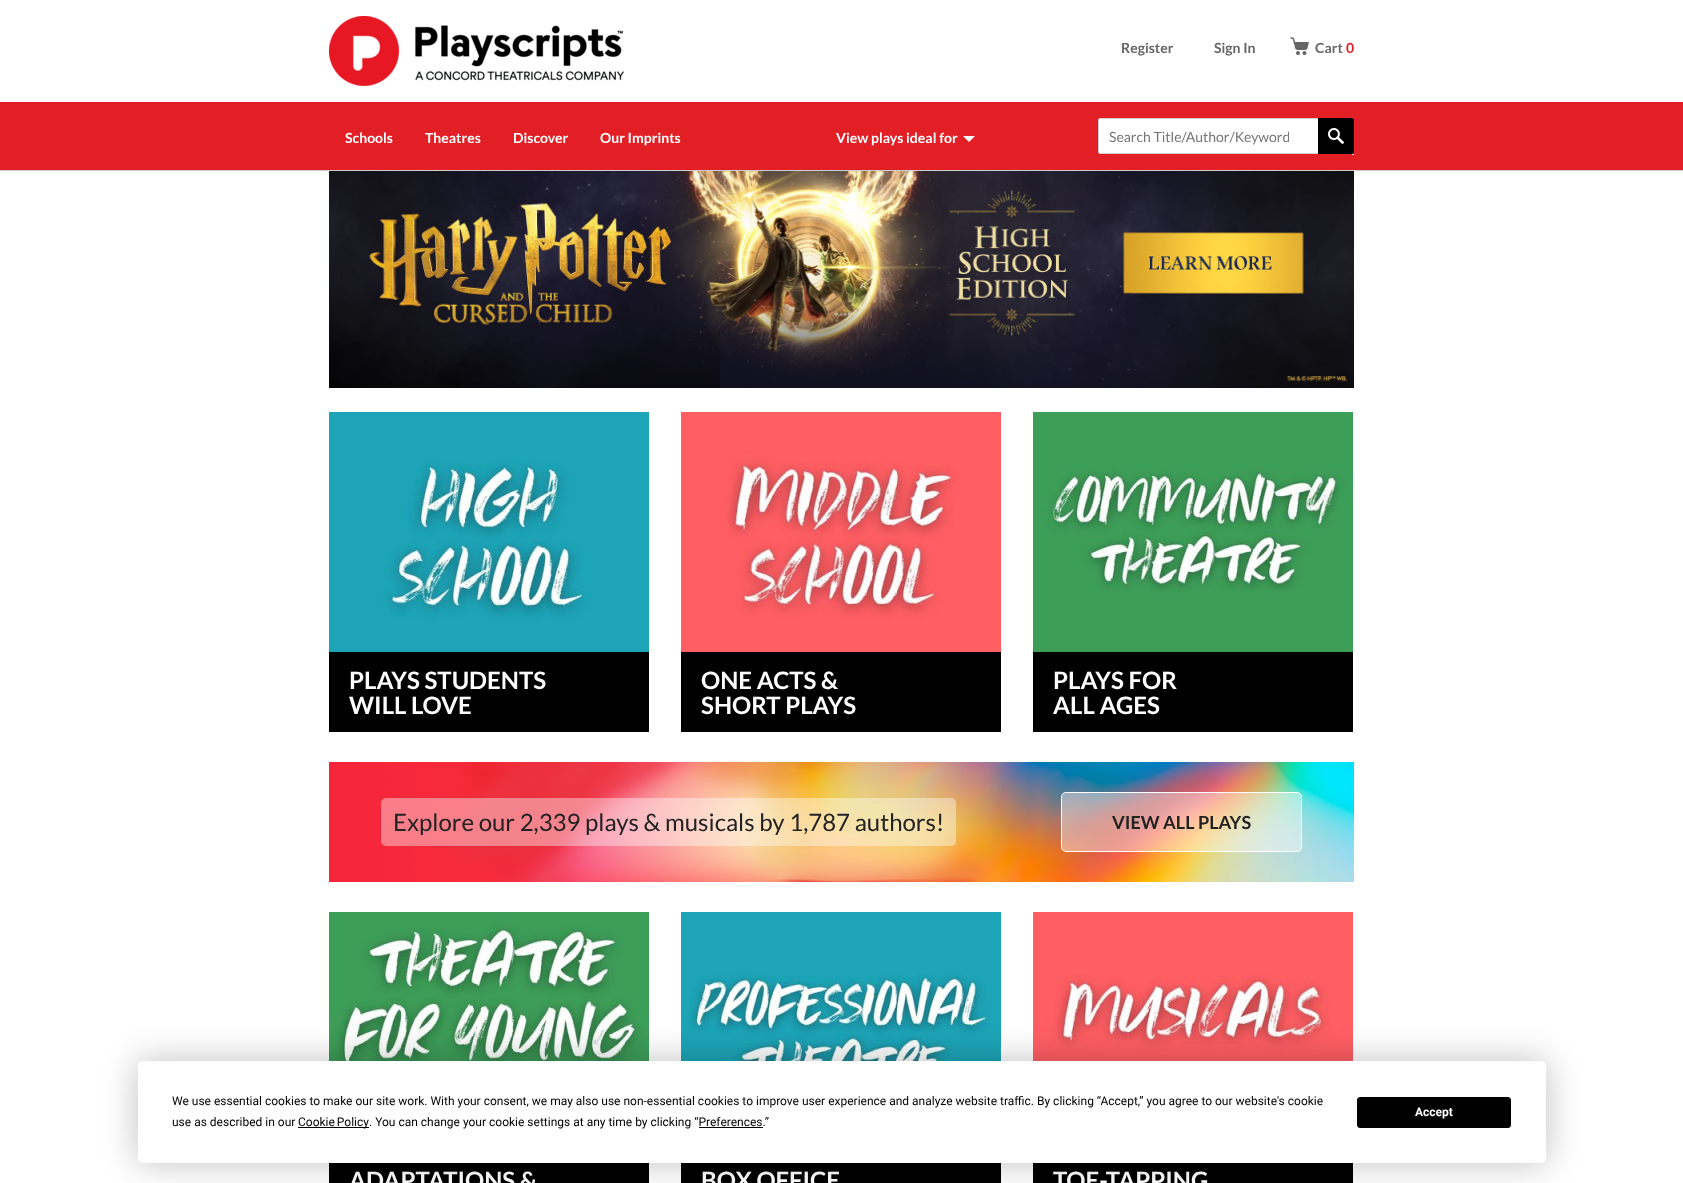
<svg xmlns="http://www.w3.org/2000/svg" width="1683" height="1183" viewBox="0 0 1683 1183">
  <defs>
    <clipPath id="clip1"><rect x="1109" y="128" width="180" height="17"/></clipPath>
    <filter id="blur1" x="-50%" y="-200%" width="200%" height="500%"><feGaussianBlur stdDeviation="17.5"/></filter>
  </defs>
  <rect width="100%" height="100%" fill="#ffffff"/>
  <rect x="0" y="170" width="1683" height="1" fill="#cdcdcd"/>
  <image x="329" y="16" width="295" height="70" href="img1.png"/>
  <text x="1121" y="53" font-family="Lato" font-size="14" font-weight="bold" fill="#666666">Register</text>
  <text x="1214" y="53" font-family="Lato" font-size="14" font-weight="bold" fill="#666666">Sign In</text>
  <image x="1290" y="37" width="19" height="18" href="img2.png"/>
  <text x="1315" y="53" font-family="Lato" font-size="14" font-weight="bold" fill="#666666">Cart</text>
  <text x="1346" y="53" font-family="Lato" font-size="14" font-weight="bold" fill="#e31f26">0</text>
  <rect x="0" y="102" width="1683" height="68" fill="#e31f26"/>
  <text x="345" y="143" font-family="Lato" font-size="14" font-weight="bold" fill="#ffffff">Schools</text>
  <text x="425" y="143" font-family="Lato" font-size="14" font-weight="bold" fill="#ffffff">Theatres</text>
  <text x="513" y="143" font-family="Lato" font-size="14" font-weight="bold" fill="#ffffff">Discover</text>
  <text x="600" y="143" font-family="Lato" font-size="14" font-weight="bold" fill="#ffffff">Our Imprints</text>
  <text x="836" y="143" font-family="Lato" font-size="14" font-weight="bold" fill="#ffffff">View plays ideal for</text>
  <path d="M963 136H975L969 142Z" fill="#ffffff"/>
  <rect x="1098.5" y="118.5" width="255" height="35" rx="1.5" fill="#ffffff" stroke="#cdcdcd"/>
  <g clip-path="url(#clip1)">
    <text x="1109" y="142" font-family="Lato" font-size="14" fill="#757575">Search Title/Author/Keyword</text>
  </g>
  <path d="M1318 118H1352C1353 118 1354 119 1354 120V152C1354 153 1353 154 1352 154H1318Z" fill="#000000"/>
  <image x="1328" y="128" width="16" height="16" href="img3.png"/>
  <rect x="1352" y="154" width="2" height="1" fill="#cccccc"/>
  <image x="329" y="171" width="1025" height="217" href="img4.png"/>
  <image x="329" y="412" width="320" height="240" href="img5.png"/>
  <rect x="329" y="652" width="320" height="80" fill="#000000"/>
  <text x="349" y="689" font-family="Lato" font-size="24" font-weight="bold" fill="#ffffff">PLAYS STUDENTS</text>
  <text x="349" y="714" font-family="Lato" font-size="24" font-weight="bold" fill="#ffffff">WILL LOVE</text>
  <image x="681" y="412" width="320" height="240" href="img6.png"/>
  <rect x="681" y="652" width="320" height="80" fill="#000000"/>
  <text x="701" y="689" font-family="Lato" font-size="24" font-weight="bold" fill="#ffffff">ONE ACTS &amp;</text>
  <text x="701" y="714" font-family="Lato" font-size="24" font-weight="bold" fill="#ffffff">SHORT PLAYS</text>
  <image x="1033" y="412" width="320" height="240" href="img7.png"/>
  <rect x="1033" y="652" width="320" height="80" fill="#000000"/>
  <text x="1053" y="689" font-family="Lato" font-size="24" font-weight="bold" fill="#ffffff">PLAYS FOR</text>
  <text x="1053" y="714" font-family="Lato" font-size="24" font-weight="bold" fill="#ffffff">ALL AGES</text>
  <image x="329" y="762" width="1025" height="120" href="img8.png"/>
  <rect x="381" y="798" width="575" height="48" rx="5" fill="#ffffff" fill-opacity="0.4"/>
  <text x="393" y="831" font-family="Lato" font-size="24" fill="#222222">Explore our 2,339 plays &amp; musicals by 1,787 authors!</text>
  <rect x="1061.5" y="792.5" width="240" height="59" rx="4.5" fill="#ffffff" fill-opacity="0.4" stroke="#ffffff"/>
  <text x="1112" y="829" font-family="Lato" font-size="18" font-weight="bold" fill="#222222">VIEW ALL PLAYS</text>
  <image x="329" y="912" width="320" height="149" href="img9.png"/>
  <rect x="329" y="1163" width="320" height="20" fill="#000000"/>
  <text x="349" y="1189" font-family="Lato" font-size="24" font-weight="bold" fill="#ffffff">ADAPTATIONS &amp;</text>
  <image x="681" y="912" width="320" height="149" href="img10.png"/>
  <rect x="681" y="1163" width="320" height="20" fill="#000000"/>
  <text x="701" y="1189" font-family="Lato" font-size="24" font-weight="bold" fill="#ffffff">BOX OFFICE</text>
  <image x="1033" y="912" width="320" height="149" href="img11.png"/>
  <rect x="1033" y="1163" width="320" height="20" fill="#000000"/>
  <text x="1053" y="1189" font-family="Lato" font-size="24" font-weight="bold" fill="#ffffff">TOE-TAPPING</text>
  <rect x="138" y="1061" width="1408" height="102" rx="5" fill="#000000" fill-opacity="0.25" filter="url(#blur1)"/>
  <rect x="138" y="1061" width="1408" height="102" rx="5" fill="#ffffff"/>
  <text x="172" y="1105" font-family="Roboto" font-size="12" fill="#000000">We use essential cookies to make our site work. With your consent, we may also use non-essential cookies to improve user experience and analyze website traffic. By clicking “Accept,” you agree to our website's cookie</text>
  <text x="172" y="1126" font-family="Roboto" font-size="12" fill="#000000">use as described in our</text>
  <rect x="298" y="1127" width="71" height="1" fill="#000000"/>
  <text x="298" y="1126" word-spacing="-1" font-family="Roboto" font-size="12" fill="#000000">Cookie Policy</text>
  <text x="369" y="1126" font-family="Roboto" font-size="12" fill="#000000">. You can change your cookie settings at any time by clicking “Preferences.”</text>
  <rect x="699" y="1127" width="64" height="1" fill="#000000"/>
  <rect x="1357.5" y="1097.5" width="153" height="30" rx="2.5" fill="#000000" stroke="#000000"/>
  <text x="1415" y="1116" font-family="Roboto" font-size="12" font-weight="bold" fill="#ffffff">Accept</text>
</svg>
